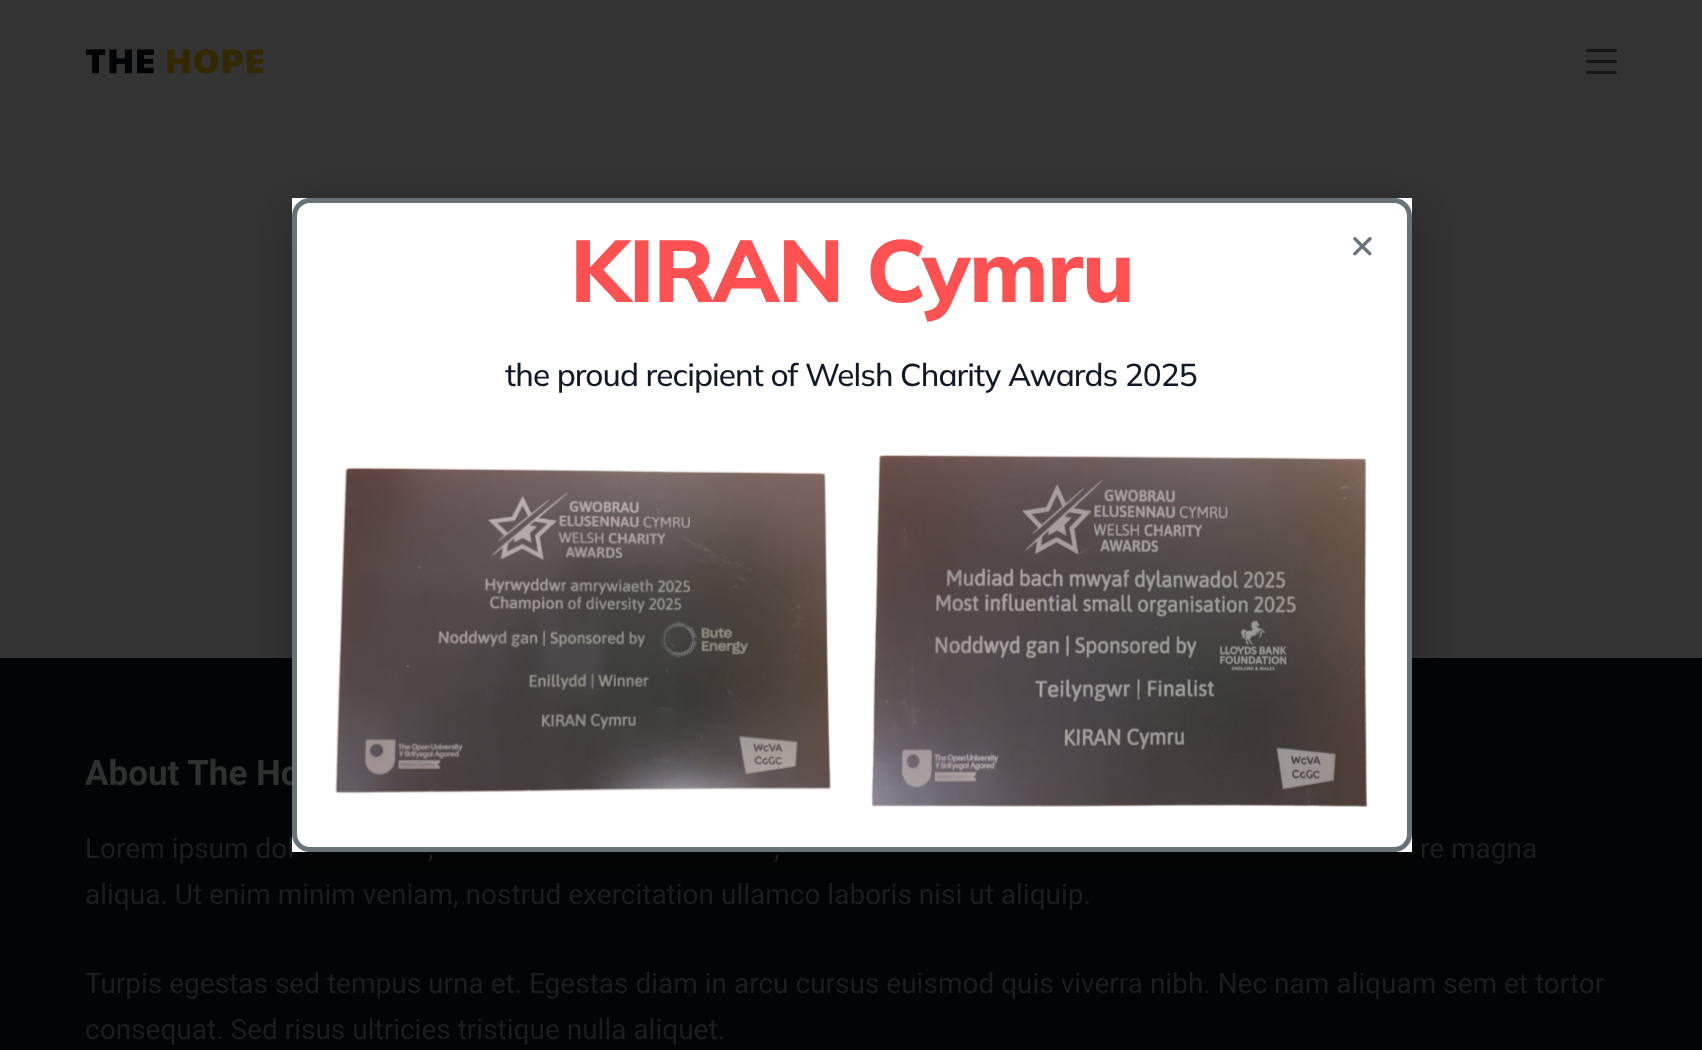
<svg xmlns="http://www.w3.org/2000/svg" width="1702" height="1050" viewBox="0 0 1702 1050">
  <defs>
    <filter id="blur1" x="-50%" y="-200%" width="200%" height="500%"><feGaussianBlur stdDeviation="20"/></filter>
  </defs>
  <rect width="100%" height="100%" fill="#333333"/>
  <rect x="0" y="658" width="1702" height="392" fill="#030405"/>
  <rect x="291" y="207" width="1130" height="665" fill="#000000" fill-opacity="0.2" filter="url(#blur1)"/>
  <text x="85" y="785" font-family="Roboto" font-size="35" font-weight="bold" fill="#2f3030">About The Ho</text>
  <text x="85" y="858" font-family="Roboto" font-size="28" fill="#1b1d1f">Lorem ipsum dol</text>
  <rect x="292" y="198" width="1120" height="654" fill="#ffffff"/>
  <rect x="294.5" y="200.5" width="1115" height="649" rx="15.5" fill="none" stroke="#687279" stroke-width="5"/>
  <text x="570" y="302" font-family="Mulish" font-size="87.5" font-weight="800" letter-spacing="-1.4" fill="#ff5151">KIRAN Cymru</text>
  <text x="505" y="386" font-family="Mulish" font-size="31.5" font-weight="500" letter-spacing="-0.9" fill="#111827">the proud recipient of Welsh Charity Awards 2025</text>
  <image x="335" y="467" width="496" height="327" href="img1.png"/>
  <image x="871" y="454" width="497" height="354" href="img2.png"/>
  <image x="1353" y="237" width="19" height="19" href="img3.png"/>
  <image x="86" y="49" width="177" height="25" href="img4.png"/>
  <rect x="1586" y="49" width="31" height="3" rx="1.5" fill="#151718"/>
  <rect x="1586" y="60" width="31" height="3" rx="1.5" fill="#151718"/>
  <rect x="1586" y="71" width="31" height="3" rx="1.5" fill="#151718"/>
  <text x="428" y="858" font-family="Roboto" font-size="28" fill="#1b1d1f">,</text>
  <text x="774" y="858" font-family="Roboto" font-size="28" fill="#1b1d1f">,</text>
  <text x="1420" y="858" font-family="Roboto" font-size="28" fill="#1b1d1f">re magna</text>
  <text x="85" y="904" font-family="Roboto" font-size="28" fill="#1b1d1f">aliqua. Ut enim minim veniam, nostrud exercitation ullamco laboris nisi ut aliquip.</text>
  <text x="85" y="993" font-family="Roboto" font-size="28" fill="#1b1d1f">Turpis egestas sed tempus urna et. Egestas diam in arcu cursus euismod quis viverra nibh. Nec nam aliquam sem et tortor</text>
  <text x="85" y="1039" font-family="Roboto" font-size="28" fill="#1b1d1f">consequat. Sed risus ultricies tristique nulla aliquet.</text>
</svg>
